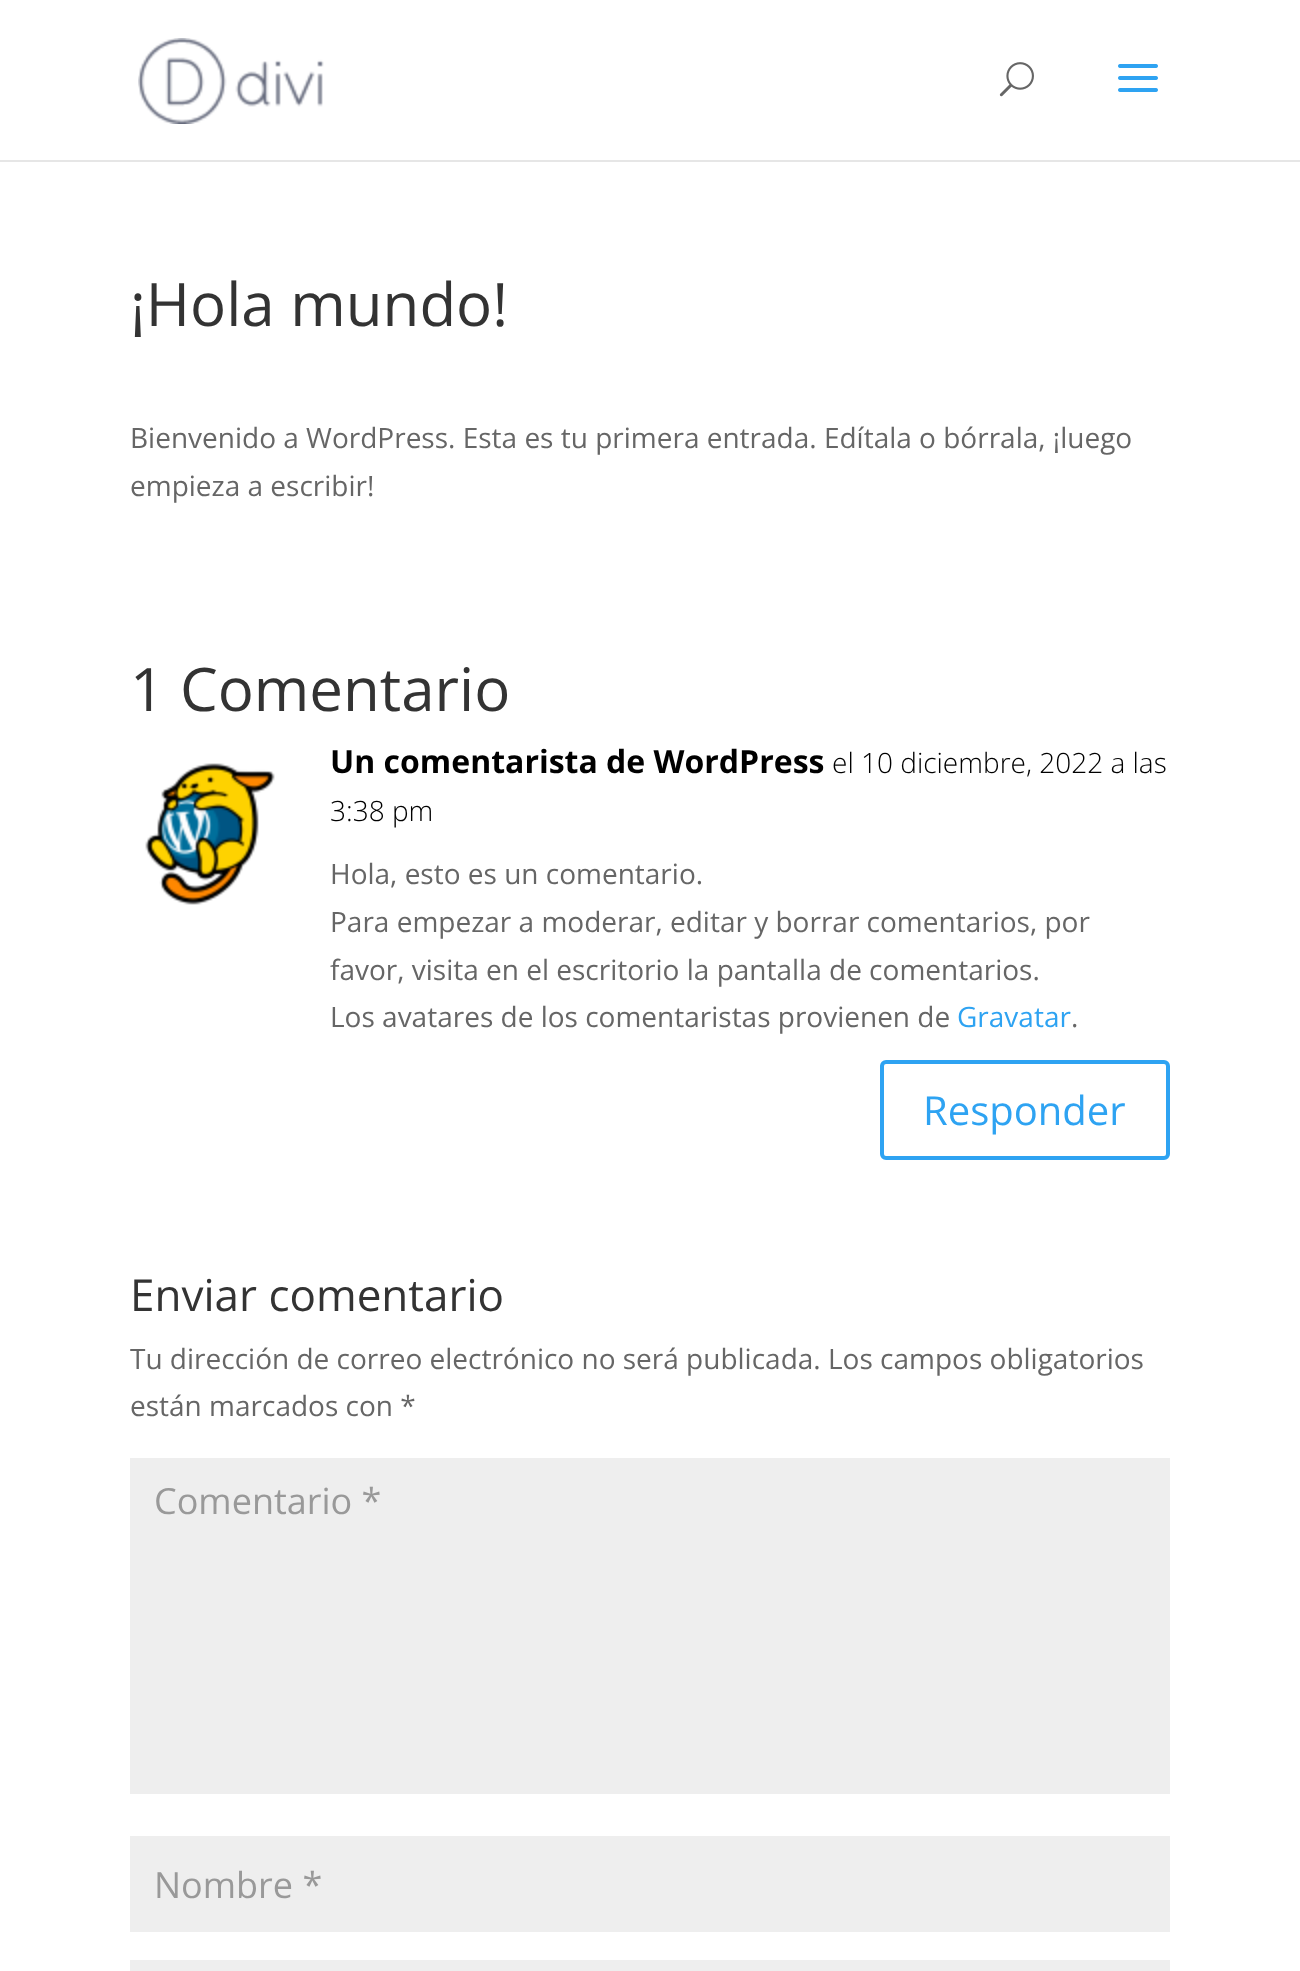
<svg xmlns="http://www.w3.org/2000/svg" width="1300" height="1971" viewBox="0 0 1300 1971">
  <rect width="100%" height="100%" fill="#ffffff"/>
  <rect x="0" y="160" width="1300" height="2" fill="#e6e6e6"/>
  <image x="138" y="38" width="186" height="86" href="img1.png"/>
  <image x="999" y="62" width="35" height="35" href="img2.png"/>
  <image x="1118" y="64" width="40" height="28" href="img3.png"/>
  <text x="130" y="326" font-family="Open Sans" font-size="60" fill="#333333">¡Hola mundo!</text>
  <text x="130" y="448" font-family="Open Sans" font-size="28" fill="#666666">Bienvenido a WordPress. Esta es tu primera entrada. Edítala o bórrala, ¡luego</text>
  <text x="130" y="496" font-family="Open Sans" font-size="28" fill="#666666">empieza a escribir!</text>
  <text x="130" y="711" font-family="Open Sans" font-size="60" fill="#333333">1 Comentario</text>
  <image x="145" y="763" width="130" height="142" href="img4.png"/>
  <text x="330" y="773" font-family="Open Sans" font-size="32" font-weight="bold" fill="#000000">Un comentarista de WordPress</text>
  <text x="832" y="773" font-family="Open Sans" font-size="28" font-weight="300" fill="#000000">el 10 diciembre, 2022 a las</text>
  <text x="330" y="821" font-family="Open Sans" font-size="28" font-weight="300" fill="#000000">3:38 pm</text>
  <text x="330" y="884" font-family="Open Sans" font-size="28" fill="#666666">Hola, esto es un comentario.</text>
  <text x="330" y="932" font-family="Open Sans" font-size="28" fill="#666666">Para empezar a moderar, editar y borrar comentarios, por</text>
  <text x="330" y="980" font-family="Open Sans" font-size="28" fill="#666666">favor, visita en el escritorio la pantalla de comentarios.</text>
  <text x="330" y="1027" font-family="Open Sans" font-size="28" fill="#666666">Los avatares de los comentaristas provienen de</text>
  <text x="957" y="1027" font-family="Open Sans" font-size="28" fill="#2ea3f2">Gravatar</text>
  <text x="1071" y="1027" font-family="Open Sans" font-size="28" fill="#666666">.</text>
  <rect x="882" y="1062" width="286" height="96" rx="4" fill="none" stroke="#2ea3f2" stroke-width="4"/>
  <text x="923" y="1125" font-family="Open Sans" font-size="40" fill="#2ea3f2">Responder</text>
  <text x="130" y="1311" font-family="Open Sans" font-size="44" fill="#333333">Enviar comentario</text>
  <text x="130" y="1369" font-family="Open Sans" font-size="28" fill="#666666">Tu dirección de correo electrónico no será publicada. Los campos obligatorios</text>
  <text x="130" y="1416" font-family="Open Sans" font-size="28" fill="#666666">están marcados con *</text>
  <rect x="130" y="1458" width="1040" height="336" fill="#eeeeee"/>
  <text x="154" y="1514" font-family="Open Sans" font-size="36" fill="#999999">Comentario *</text>
  <rect x="130" y="1836" width="1040" height="96" fill="#eeeeee"/>
  <text x="154" y="1898" font-family="Open Sans" font-size="36" fill="#999999">Nombre *</text>
  <rect x="130" y="1960" width="1040" height="11" fill="#eeeeee"/>
</svg>
